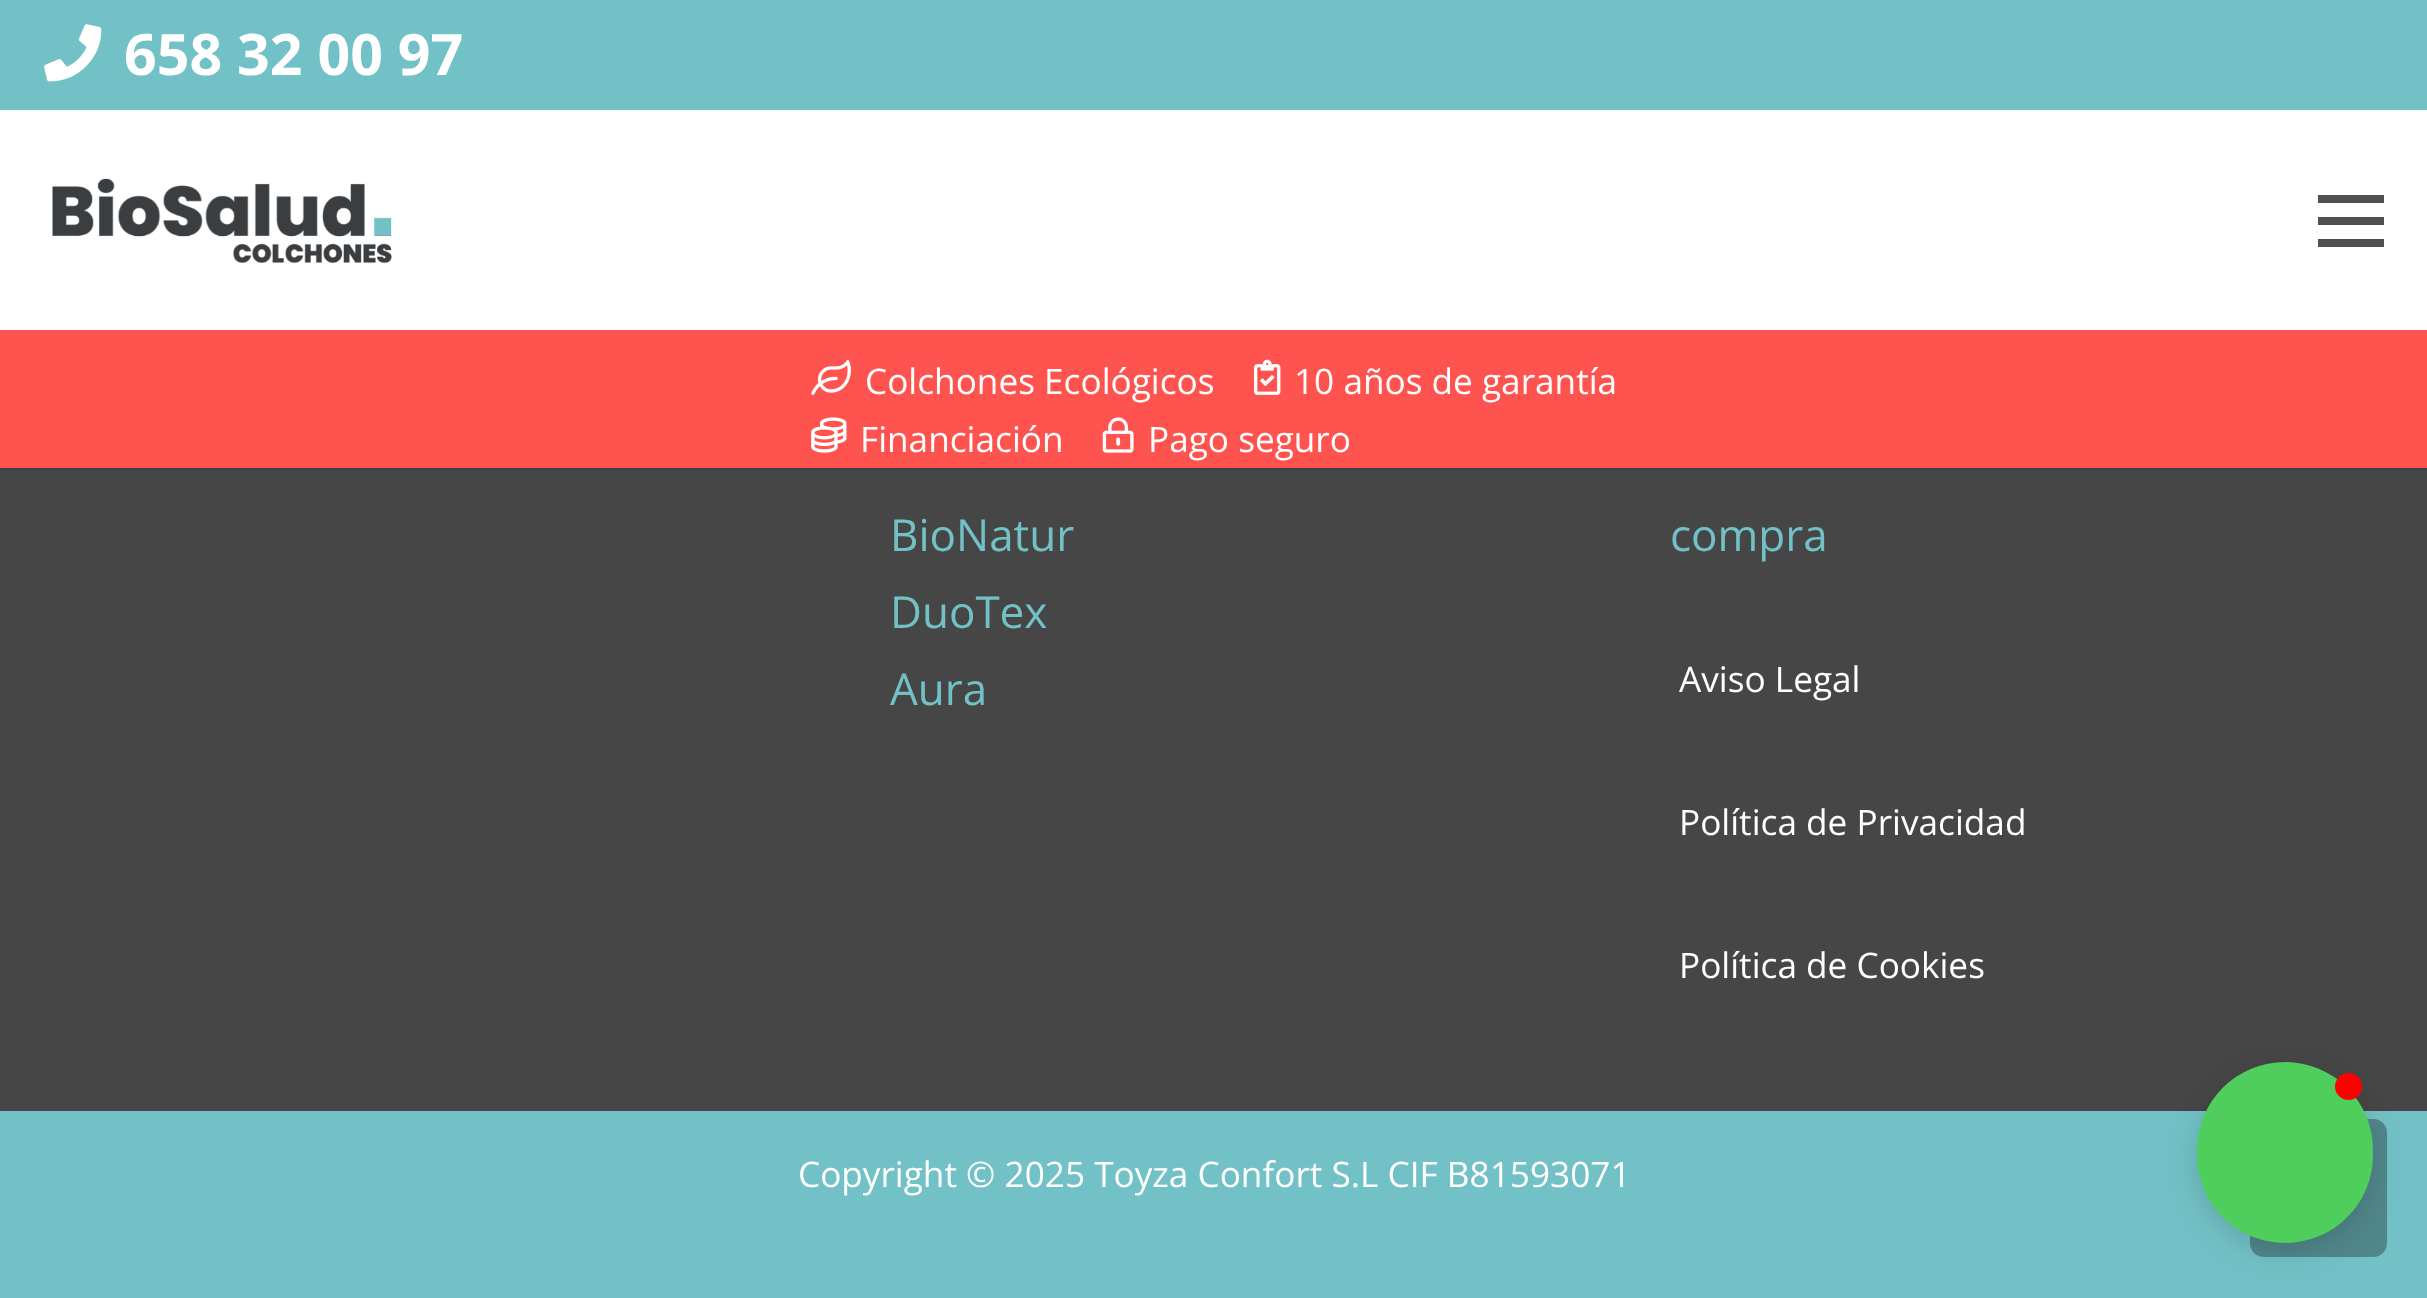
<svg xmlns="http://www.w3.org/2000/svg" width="2427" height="1298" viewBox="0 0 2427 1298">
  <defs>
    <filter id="blur1" x="-50%" y="-200%" width="200%" height="500%"><feGaussianBlur stdDeviation="16.5"/></filter>
  </defs>
  <rect width="100%" height="100%" fill="#464646"/>
  <rect x="0" y="0" width="2427" height="110" fill="#72c1c6"/>
  <image x="44" y="24" width="58" height="58" href="img1.png"/>
  <text x="124" y="75" font-family="Open Sans" font-size="57.25" font-weight="bold" fill="#ffffff">658 32 00 97</text>
  <rect x="0" y="110" width="2427" height="220" fill="#ffffff"/>
  <image x="52" y="178" width="340" height="86" href="img2.png"/>
  <rect x="2318" y="217" width="66" height="8" fill="#505050"/>
  <rect x="2318" y="195" width="66" height="8" fill="#505050"/>
  <rect x="2318" y="239" width="66" height="8" fill="#505050"/>
  <rect x="0" y="468" width="2427" height="2" fill="#000000" fill-opacity="0.08"/>
  <rect x="0" y="330" width="2427" height="138" fill="#ff5350"/>
  <image x="811" y="359" width="40" height="36" href="img3.png"/>
  <text x="865" y="394" font-family="Open Sans" font-size="35.2" fill="#ffffff">Colchones Ecológicos</text>
  <image x="1254" y="359" width="27" height="36" href="img4.png"/>
  <text x="1294" y="394" font-family="Open Sans" font-size="35.2" fill="#ffffff">10 años de garantía</text>
  <image x="811" y="417" width="36" height="36" href="img5.png"/>
  <text x="860" y="452" font-family="Open Sans" font-size="35.2" fill="#ffffff">Financiación</text>
  <image x="1102" y="417" width="32" height="36" href="img6.png"/>
  <text x="1148" y="452" font-family="Open Sans" font-size="35.2" fill="#ffffff">Pago seguro</text>
  <text x="890" y="551" font-family="Open Sans" font-size="44" fill="#72c1c6">BioNatur</text>
  <text x="890" y="628" font-family="Open Sans" font-size="44" fill="#72c1c6">DuoTex</text>
  <text x="890" y="705" font-family="Open Sans" font-size="44" fill="#72c1c6">Aura</text>
  <text x="1670" y="551" font-family="Open Sans" font-size="44" fill="#72c1c6">compra</text>
  <text x="1679" y="692" font-family="Open Sans" font-size="35.2" fill="#ffffff">Aviso Legal</text>
  <text x="1679" y="835" font-family="Open Sans" font-size="35.2" fill="#ffffff">Política de Privacidad</text>
  <text x="1679" y="978" font-family="Open Sans" font-size="35.2" fill="#ffffff">Política de Cookies</text>
  <rect x="0" y="1111" width="2427" height="187" fill="#72c1c6"/>
  <text x="798" y="1187" font-family="Open Sans" font-size="35.2" fill="#ffffff">Copyright © 2025 Toyza Confort S.L CIF B81593071</text>
  <rect x="2250" y="1119" width="137" height="138" rx="14" fill="#50878b"/>
  <rect x="2197" y="1070" width="176" height="181" rx="88" fill="#000000" fill-opacity="0.15" filter="url(#blur1)"/>
  <rect x="2197" y="1062" width="176" height="181" rx="88" fill="#4fce5d"/>
  <circle cx="2348.5" cy="1086.5" r="13.5" fill="#ff0000"/>
</svg>
